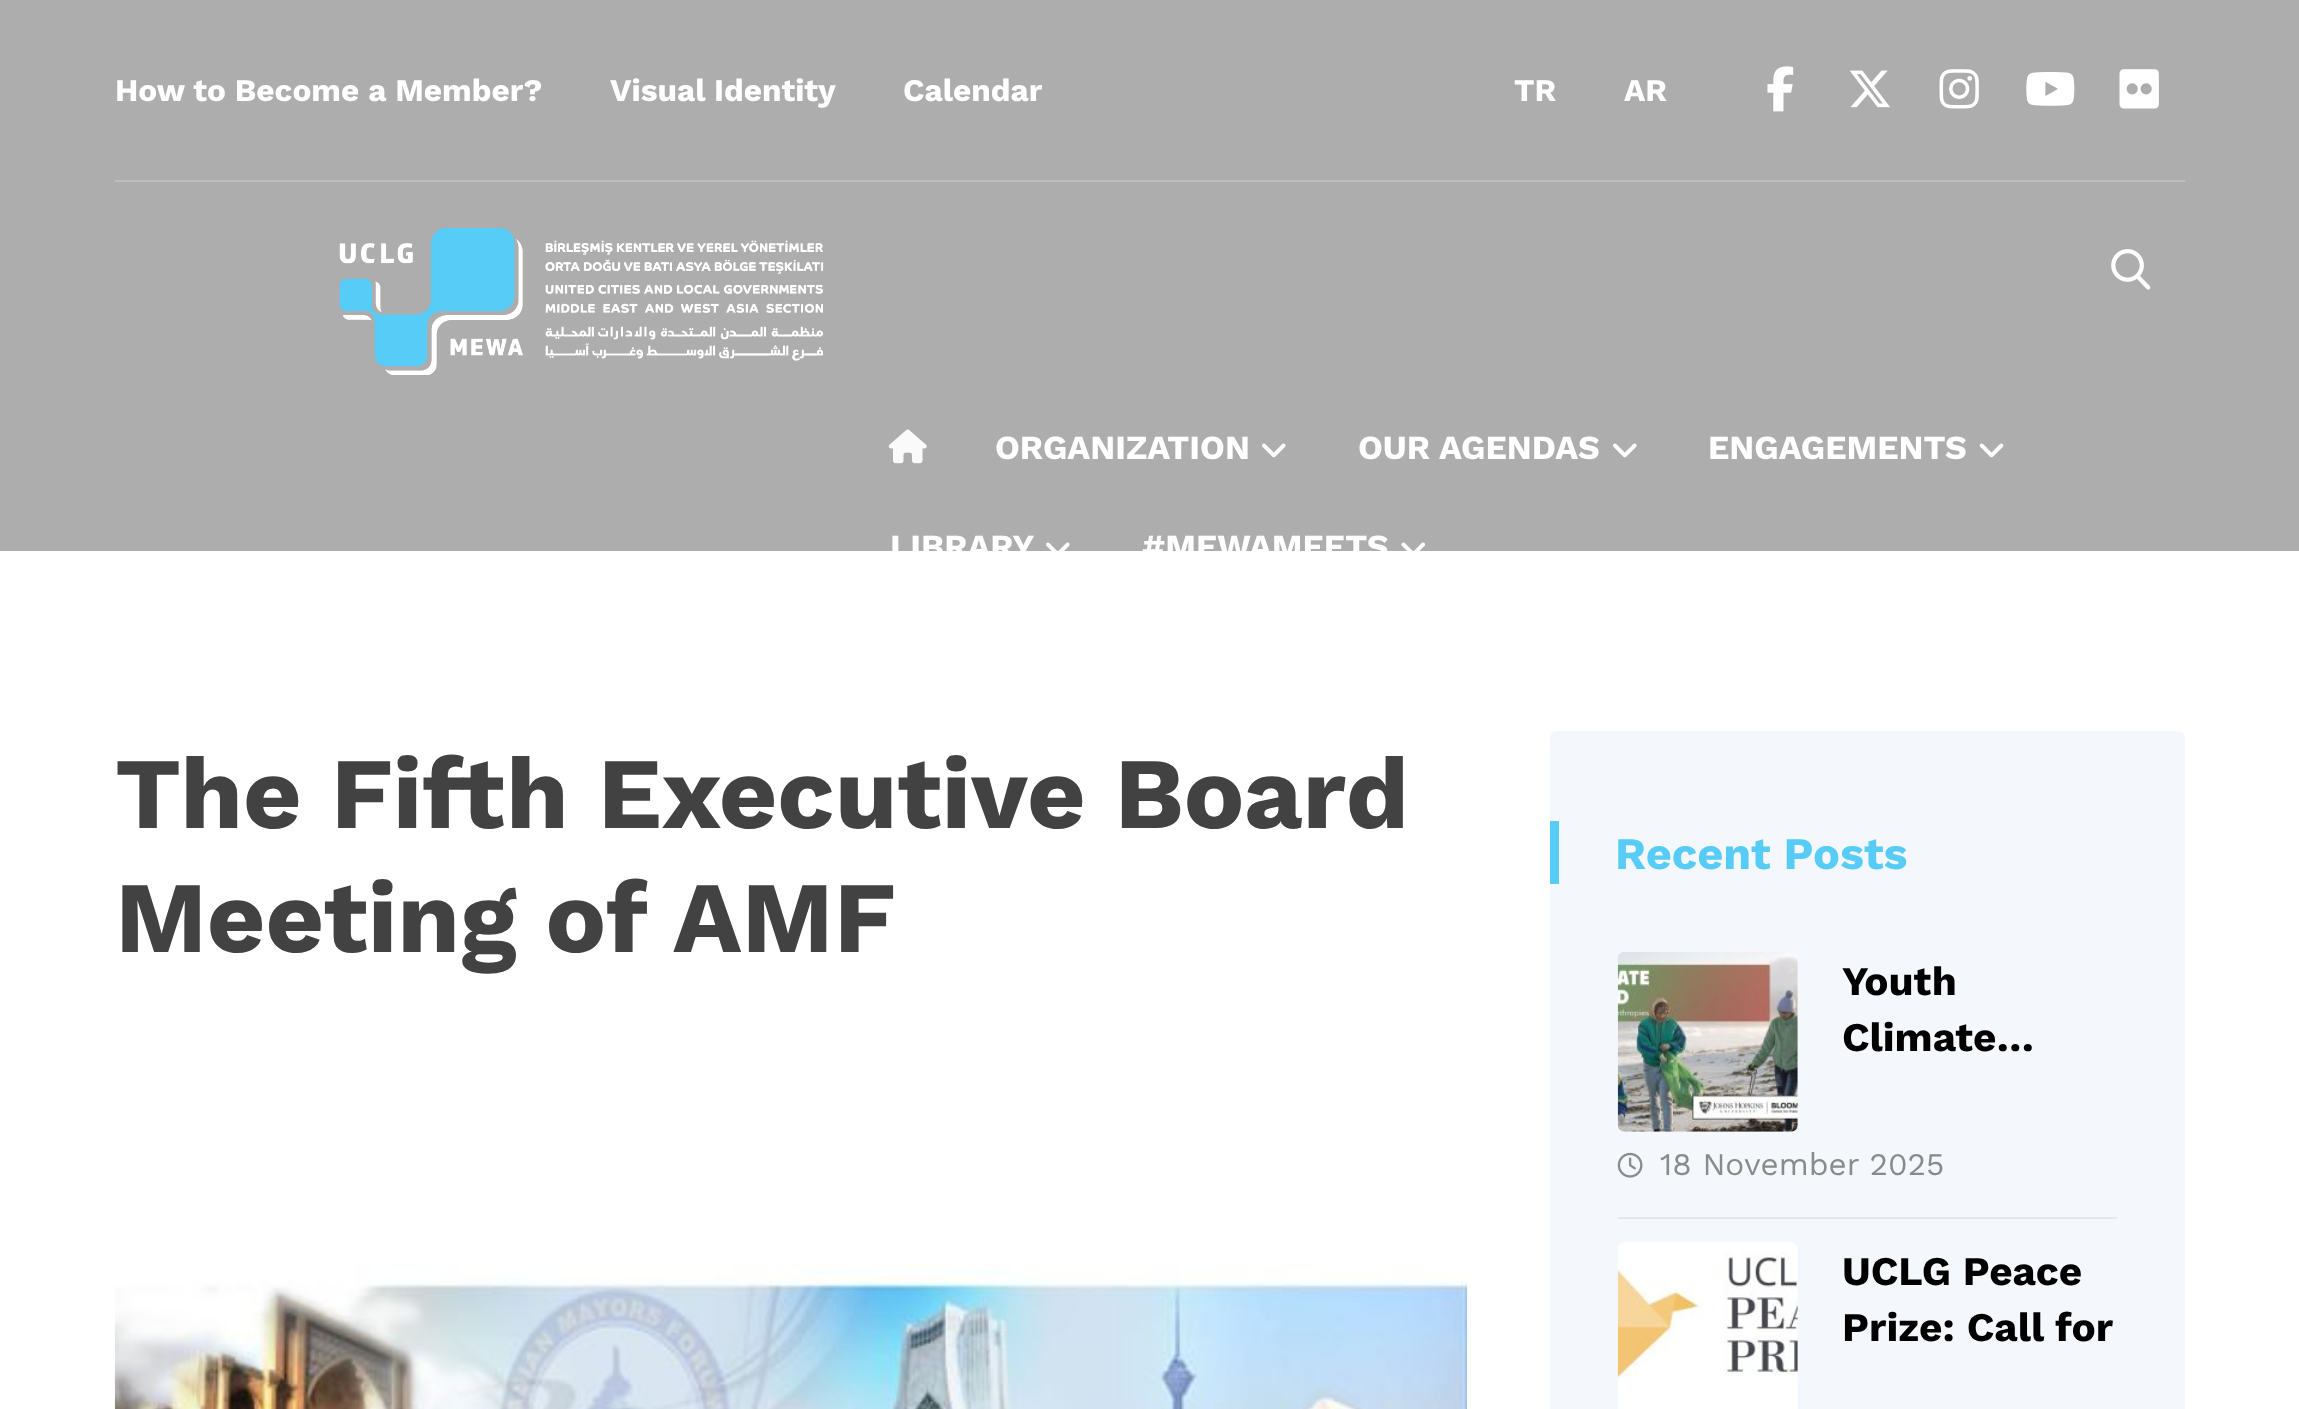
<svg xmlns="http://www.w3.org/2000/svg" width="2299" height="1409" viewBox="0 0 2299 1409">
  <rect width="100%" height="100%" fill="#ffffff"/>
  <rect x="0" y="0" width="2299" height="551" fill="#adadad"/>
  <rect x="115" y="180" width="2070" height="2" fill="#bdbdbd"/>
  <text x="115" y="101" font-family="Work Sans" font-size="31.5" font-weight="bold" fill="#ffffff">How to Become a Member?</text>
  <text x="610" y="101" font-family="Work Sans" font-size="31.5" font-weight="bold" fill="#ffffff">Visual Identity</text>
  <text x="903" y="101" font-family="Work Sans" font-size="31.5" font-weight="bold" fill="#ffffff">Calendar</text>
  <text x="1514" y="101" font-family="Work Sans" font-size="31.5" font-weight="bold" fill="#ffffff">TR</text>
  <text x="1624" y="101" font-family="Work Sans" font-size="31.5" font-weight="bold" fill="#ffffff">AR</text>
  <image x="1767" y="66" width="27" height="46" href="img1.png"/>
  <image x="1849" y="70" width="41" height="38" href="img2.png"/>
  <image x="1939" y="69" width="40" height="40" href="img3.png"/>
  <image x="2026" y="72" width="49" height="34" href="img4.png"/>
  <image x="2119" y="69" width="40" height="40" href="img5.png"/>
  <image x="339" y="228" width="485" height="147" href="img6.png"/>
  <image x="2111" y="249" width="40" height="41" href="img7.png"/>
  <image x="888" y="429" width="39" height="35" href="img8.png"/>
  <text x="995" y="459" font-family="Work Sans" font-size="33.75" font-weight="bold" fill="#ffffff">ORGANIZATION</text>
  <image x="1262" y="443" width="24" height="15" href="img9.png"/>
  <text x="1358" y="459" font-family="Work Sans" font-size="33.75" font-weight="bold" fill="#ffffff">OUR AGENDAS</text>
  <image x="1613" y="443" width="24" height="15" href="img9.png"/>
  <text x="1708" y="459" font-family="Work Sans" font-size="33.75" font-weight="bold" fill="#ffffff">ENGAGEMENTS</text>
  <image x="1979" y="443" width="25" height="15" href="img10.png"/>
  <text x="890" y="558" font-family="Work Sans" font-size="33.75" font-weight="bold" fill="#ffffff">LIBRARY</text>
  <image x="1046" y="542" width="24" height="9" href="img11.png"/>
  <text x="1142" y="558" font-family="Work Sans" font-size="33.75" font-weight="bold" fill="#ffffff">#MEWAMEETS</text>
  <image x="1401" y="542" width="24" height="9" href="img12.png"/>
  <text x="115" y="828" font-family="Work Sans" font-size="101.25" font-weight="bold" fill="#424242">The Fifth Executive Board</text>
  <text x="115" y="952" font-family="Work Sans" font-size="101.25" font-weight="bold" fill="#424242">Meeting of AMF</text>
  <image x="114" y="1264" width="1353" height="145" href="img13.png"/>
  <rect x="1550" y="731" width="635" height="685" rx="7" fill="#f4f7fb"/>
  <rect x="1550" y="821" width="9" height="63" fill="#57ccf6"/>
  <text x="1615" y="869" font-family="Work Sans" font-size="45" font-weight="bold" fill="#57ccf6">Recent Posts</text>
  <rect x="1618" y="1217" width="499" height="2" fill="#e5e7ea"/>
  <image x="1617" y="952" width="181" height="180" href="img14.png"/>
  <text x="1842" y="995" font-family="Work Sans" font-size="40.5" font-weight="bold" fill="#000000">Youth</text>
  <text x="1842" y="1051" font-family="Work Sans" font-size="40.5" font-weight="bold" fill="#000000">Climate…</text>
  <image x="1617" y="1152" width="26" height="26" href="img15.png"/>
  <text x="1660" y="1175" font-family="Work Sans" font-size="31.5" fill="#898a8c">18 November 2025</text>
  <image x="1617" y="1242" width="181" height="167" href="img16.png"/>
  <text x="1842" y="1285" font-family="Work Sans" font-size="40.5" font-weight="bold" fill="#000000">UCLG Peace</text>
  <text x="1842" y="1341" font-family="Work Sans" font-size="40.5" font-weight="bold" fill="#000000">Prize: Call for</text>
</svg>
